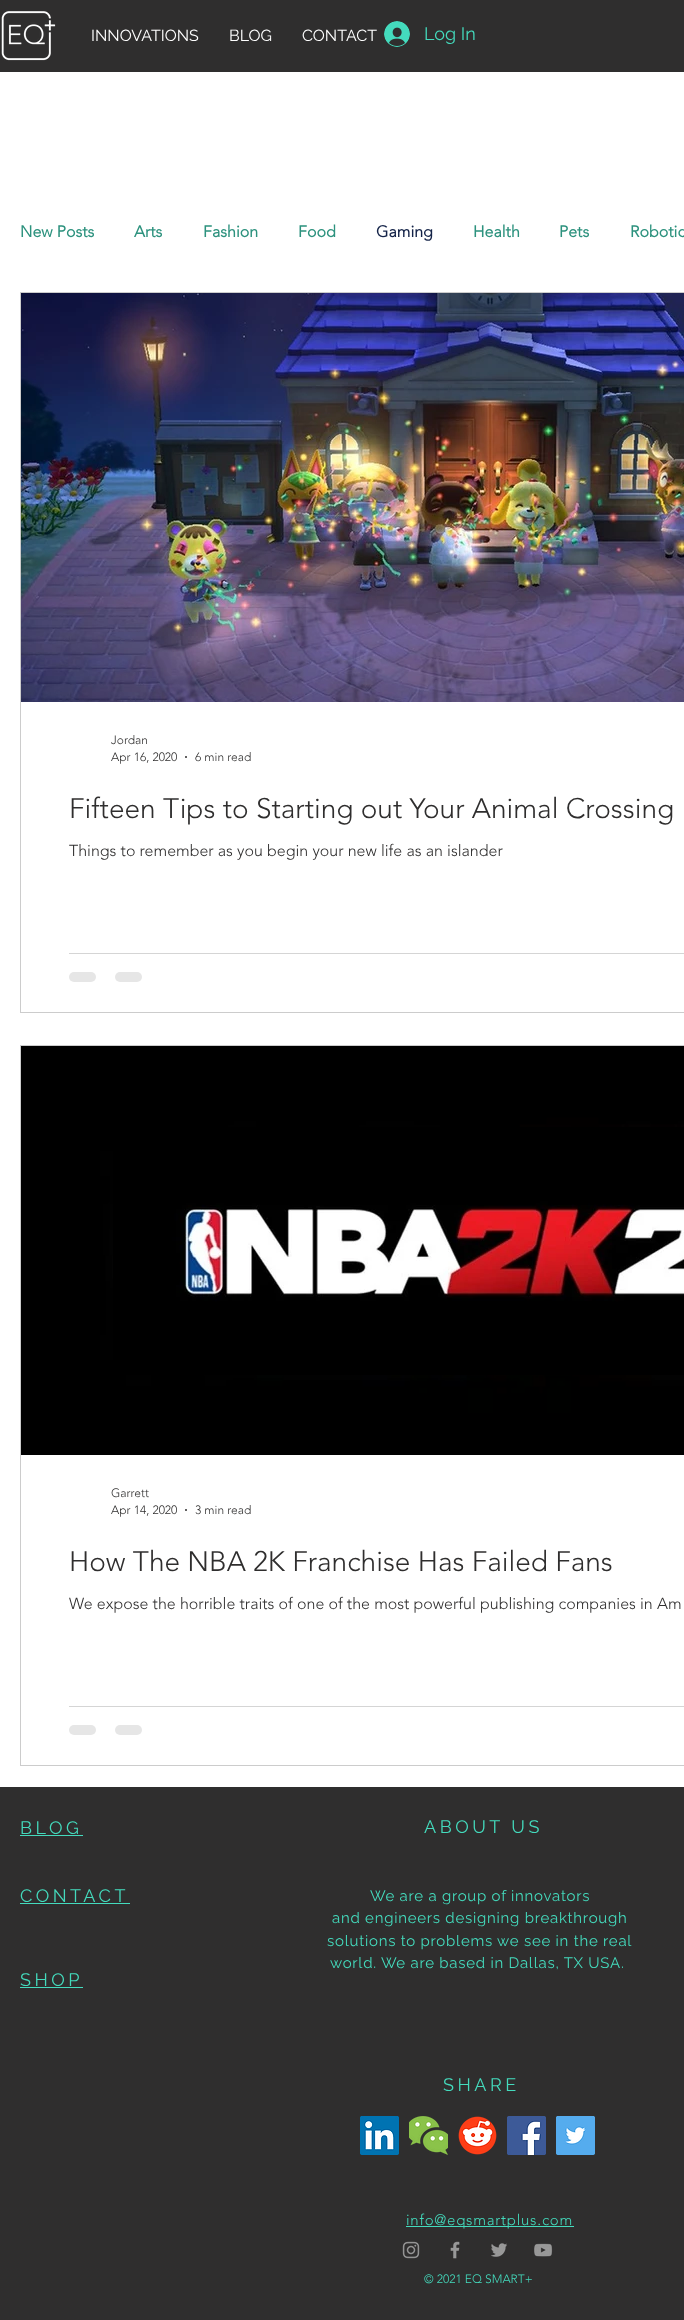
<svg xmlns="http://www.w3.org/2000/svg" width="684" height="2320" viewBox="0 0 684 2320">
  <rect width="100%" height="100%" fill="#ffffff"/>
  <rect x="0" y="0" width="684" height="72" fill="#2f2e2e"/>
  <image x="1" y="11" width="55" height="50" href="img1.png"/>
  <text x="91" y="41" font-family="Raleway" font-size="16" fill="#ffffff">INNOVATIONS</text>
  <text x="229" y="41" font-family="Raleway" font-size="16" fill="#ffffff">BLOG</text>
  <text x="302" y="41" font-family="Raleway" font-size="16" fill="#ffffff">CONTACT</text>
  <image x="384" y="21" width="26" height="26" href="img2.png"/>
  <text x="424" y="40" font-family="Raleway" font-size="18" fill="#44dbbd">Log In</text>
  <text x="20" y="237" font-family="'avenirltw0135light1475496'" font-size="16" font-weight="bold" fill="#2d927e">New Posts</text>
  <text x="134" y="237" font-family="'avenirltw0135light1475496'" font-size="16" font-weight="bold" fill="#2d927e">Arts</text>
  <text x="203" y="237" font-family="'avenirltw0135light1475496'" font-size="16" font-weight="bold" fill="#2d927e">Fashion</text>
  <text x="298" y="237" font-family="'avenirltw0135light1475496'" font-size="16" font-weight="bold" fill="#2d927e">Food</text>
  <text x="376" y="237" font-family="'avenirltw0135light1475496'" font-size="16" font-weight="bold" fill="#142348">Gaming</text>
  <text x="473" y="237" font-family="'avenirltw0135light1475496'" font-size="16" font-weight="bold" fill="#2d927e">Health</text>
  <text x="559" y="237" font-family="'avenirltw0135light1475496'" font-size="16" font-weight="bold" fill="#2d927e">Pets</text>
  <text x="630" y="237" font-family="'avenirltw0135light1475496'" font-size="16" font-weight="bold" fill="#2d927e">Robotic</text>
  <rect x="20.5" y="292.5" width="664" height="720" fill="none" stroke="#cccccc"/>
  <image x="21" y="293" width="663" height="409" href="img3.png"/>
  <text x="111" y="744" font-family="'avenirltw0135light1475496'" font-size="12" font-weight="300" fill="#2f2e2e">Jordan</text>
  <text x="111" y="761" font-family="'avenirltw0135light1475496'" font-size="12" font-weight="300" fill="#2f2e2e">Apr 16, 2020</text>
  <circle cx="186" cy="757" r="1" fill="#2f2e2e"/>
  <text x="195" y="761" font-family="'avenirltw0135light1475496'" font-size="12" font-weight="300" fill="#2f2e2e">6 min read</text>
  <text x="69" y="818" font-family="'avenirltw0135light1475496'" font-size="28" font-weight="300" fill="#2f2e2e">Fifteen Tips to Starting out Your Animal Crossing</text>
  <text x="69" y="856" font-family="'avenirltw0135light1475496'" font-size="16" font-weight="300" fill="#2f2e2e">Things to remember as you begin your new life as an islander</text>
  <rect x="69" y="953" width="615" height="1" fill="#d5d5d5"/>
  <rect x="69" y="972" width="27" height="10" rx="5" fill="#e6e6e6"/>
  <rect x="115" y="972" width="27" height="10" rx="5" fill="#e6e6e6"/>
  <rect x="20.5" y="1045.5" width="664" height="720" fill="none" stroke="#cccccc"/>
  <image x="21" y="1046" width="663" height="409" href="img4.png"/>
  <image x="113" y="1127" width="571" height="248" href="img5.png"/>
  <text x="111" y="1497" font-family="'avenirltw0135light1475496'" font-size="12" font-weight="300" fill="#2f2e2e">Garrett</text>
  <text x="111" y="1514" font-family="'avenirltw0135light1475496'" font-size="12" font-weight="300" fill="#2f2e2e">Apr 14, 2020</text>
  <circle cx="186" cy="1510" r="1" fill="#2f2e2e"/>
  <text x="195" y="1514" font-family="'avenirltw0135light1475496'" font-size="12" font-weight="300" fill="#2f2e2e">3 min read</text>
  <text x="69" y="1571" font-family="'avenirltw0135light1475496'" font-size="28" font-weight="300" fill="#2f2e2e">How The NBA 2K Franchise Has Failed Fans</text>
  <text x="69" y="1609" font-family="'avenirltw0135light1475496'" font-size="16" font-weight="300" fill="#2f2e2e">We expose the horrible traits of one of the most powerful publishing companies in Am</text>
  <rect x="69" y="1706" width="615" height="1" fill="#d5d5d5"/>
  <rect x="69" y="1725" width="27" height="10" rx="5" fill="#e6e6e6"/>
  <rect x="115" y="1725" width="27" height="10" rx="5" fill="#e6e6e6"/>
  <rect x="0" y="1787" width="684" height="533" fill="#2f2e2e"/>
  <text x="20" y="1834" font-family="Raleway" font-size="18" letter-spacing="3.5" fill="#44dbbd">BLOG</text>
  <rect x="20" y="1835" width="63" height="1" fill="#44dbbd"/>
  <text x="424" y="1833" font-family="Raleway" font-size="18" letter-spacing="3.5" fill="#44dbbd">ABOUT US</text>
  <text x="20" y="1902" font-family="Raleway" font-size="18" letter-spacing="3.5" fill="#44dbbd">CONTACT</text>
  <rect x="20" y="1903" width="110" height="1" fill="#44dbbd"/>
  <text x="370" y="1901" font-family="Raleway" font-size="15" letter-spacing="0.75" fill="#44dbbd">We are a group of innovators</text>
  <text x="332" y="1923" font-family="Raleway" font-size="15" letter-spacing="0.75" fill="#44dbbd">and engineers designing breakthrough</text>
  <text x="327" y="1946" font-family="Raleway" font-size="15" letter-spacing="0.75" fill="#44dbbd">solutions to problems we see in the real</text>
  <text x="330" y="1968" font-family="Raleway" font-size="15" letter-spacing="0.75" fill="#44dbbd">world. We are based in Dallas, TX USA.</text>
  <text x="20" y="1986" font-family="Raleway" font-size="18" letter-spacing="3.5" fill="#44dbbd">SHOP</text>
  <rect x="20" y="1987" width="63" height="1" fill="#44dbbd"/>
  <text x="443" y="2091" font-family="Raleway" font-size="18" letter-spacing="3.5" fill="#44dbbd">SHARE</text>
  <image x="360" y="2116" width="39" height="39" href="img6.png"/>
  <image x="409" y="2116" width="39" height="39" href="img7.png"/>
  <image x="458" y="2116" width="39" height="39" href="img8.png"/>
  <image x="507" y="2116" width="39" height="39" href="img9.png"/>
  <image x="556" y="2116" width="39" height="39" href="img10.png"/>
  <rect x="406" y="2226" width="168" height="1" fill="#44dbbd"/>
  <text x="406" y="2225" font-family="'avenirltw0135light1475496'" font-size="15" font-weight="300" letter-spacing="0.75" fill="#44dbbd">info@eqsmartplus.com</text>
  <image x="402" y="2241" width="18" height="18" href="img11.png"/>
  <image x="450" y="2241" width="10" height="18" href="img12.png"/>
  <image x="491" y="2243" width="16" height="14" href="img13.png"/>
  <image x="534" y="2243" width="19" height="14" href="img14.png"/>
  <text x="424" y="2283" font-family="'avenirltw0135light1475496'" font-size="12" font-weight="300" fill="#44dbbd">© 2021 EQ SMART+</text>
</svg>
